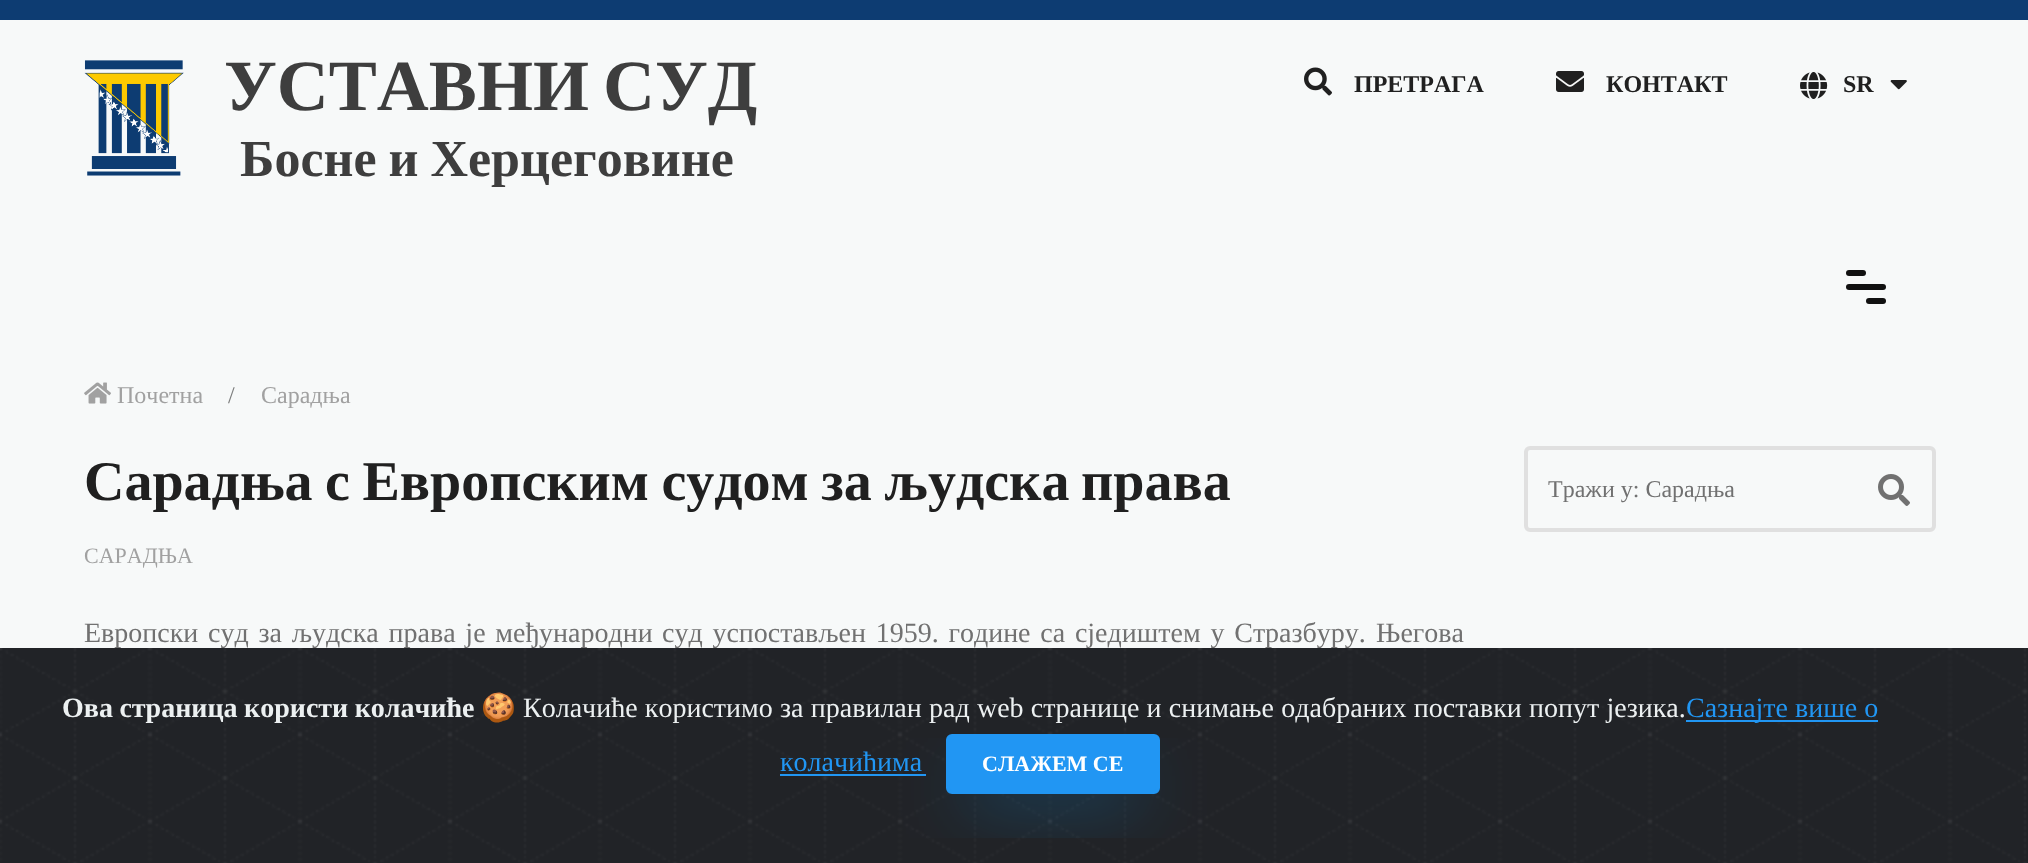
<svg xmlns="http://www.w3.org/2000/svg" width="2028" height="863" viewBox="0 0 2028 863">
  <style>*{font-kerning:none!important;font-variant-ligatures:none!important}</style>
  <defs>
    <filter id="blur1" x="-50%" y="-200%" width="200%" height="500%"><feGaussianBlur stdDeviation="35"/></filter>
  </defs>
  <rect width="100%" height="100%" fill="#f7f9f9"/>
  <rect x="0" y="0" width="2028" height="20" fill="#0d3c72"/>
  <image x="84" y="60" width="100" height="116" href="img1.png"/>
  <text x="224" y="110" word-spacing="-4" font-family="Liberation Serif" font-size="72" font-weight="bold" fill="#3e3e3e">УСТАВНИ СУД</text>
  <text x="240" y="176" word-spacing="-1" font-family="Liberation Serif" font-size="52" font-weight="bold" fill="#3e3e3e">Босне и Херцеговине</text>
  <image x="1304" y="67" width="28" height="29" href="img2.png"/>
  <text x="1354" y="92" font-family="Liberation Serif" font-size="24" font-weight="bold" fill="#202020">ПРЕТРАГА</text>
  <image x="1556" y="71" width="28" height="21" href="img3.png"/>
  <text x="1606" y="92" font-family="Liberation Serif" font-size="24" font-weight="bold" fill="#202020">КОНТАКТ</text>
  <image x="1800" y="72" width="28" height="27" href="img4.png"/>
  <text x="1843" y="92" font-family="Liberation Serif" font-size="24" font-weight="bold" fill="#202020">SR</text>
  <image x="1890" y="80" width="17" height="10" href="img5.png"/>
  <rect x="1846" y="270" width="20" height="6" rx="3" fill="#111111"/>
  <rect x="1846" y="284" width="40" height="6" rx="3" fill="#111111"/>
  <rect x="1866" y="298" width="20" height="6" rx="3" fill="#111111"/>
  <image x="84" y="382" width="27" height="22" href="img6.png"/>
  <text x="117" y="403" font-family="Liberation Serif" font-size="24" fill="#a1a1a1">Почетна</text>
  <text x="228" y="403" font-family="Liberation Serif" font-size="24" fill="#7c7d7d">/</text>
  <text x="261" y="403" font-family="Liberation Serif" font-size="24" fill="#a1a1a1">Сарадња</text>
  <text x="84" y="500" word-spacing="-1.5" font-family="Liberation Serif" font-size="56" font-weight="bold" fill="#202020">Сарадња с Европским судом за људска</text>
  <text x="1081" y="500" word-spacing="-1.5" font-family="Liberation Serif" font-size="56" font-weight="bold" fill="#202020">права</text>
  <text x="84" y="563" font-family="Liberation Serif" font-size="22" fill="#a1a1a1">САРАДЊА</text>
  <text x="84" y="642" word-spacing="2.75" font-family="Liberation Serif" font-size="28" fill="#717171">Европски суд за људска права је међународни</text>
  <text x="662" y="642" word-spacing="2.75" font-family="Liberation Serif" font-size="28" fill="#717171">суд успостављен 1959. године са сједиштем у Стразбуру.</text>
  <text x="1376" y="642" word-spacing="2.75" font-family="Liberation Serif" font-size="28" fill="#717171">Његова</text>
  <rect x="1526" y="448" width="408" height="82" rx="4" fill="none" stroke="#e0e0e0" stroke-width="4"/>
  <text x="1548" y="497" font-family="Liberation Serif" font-size="24" fill="#717171">Тражи у: Сарадња</text>
  <image x="1878" y="474" width="32" height="32" href="img7.png"/>
  <image x="0" y="648" width="2028" height="215" href="img8.png"/>
  <text x="62" y="717" word-spacing="-0.5" font-family="Liberation Serif" font-size="28" font-weight="bold" fill="#ecf0f1">Ова страница користи колачиће</text>
  <text x="481" y="717" font-family="Noto Color Emoji" font-size="28" fill="#ecf0f1">🍪</text>
  <text x="523" y="717" word-spacing="0.25" font-family="Liberation Serif" font-size="28" fill="#ecf0f1">Колачиће користимо за правилан рад web странице и снимање одабраних поставки попут језика.</text>
  <rect x="1686" y="720" width="192" height="2" fill="#2196f3"/>
  <text x="1686" y="717" font-family="Liberation Serif" font-size="28" fill="#2196f3">Сазнајте више о</text>
  <text x="780" y="771" font-family="Liberation Serif" font-size="28" fill="#2196f3">колачићима</text>
  <rect x="780" y="774" width="146" height="2" fill="#2196f3"/>
  <rect x="966" y="778" width="174" height="20" fill="#2196f3" fill-opacity="0.55" filter="url(#blur1)"/>
  <rect x="948" y="736" width="210" height="56" rx="4" fill="#2196f3" stroke="#2196f3" stroke-width="4"/>
  <text x="982" y="771" font-family="Liberation Serif" font-size="22" font-weight="bold" fill="#ffffff">СЛАЖЕМ СЕ</text>
</svg>
